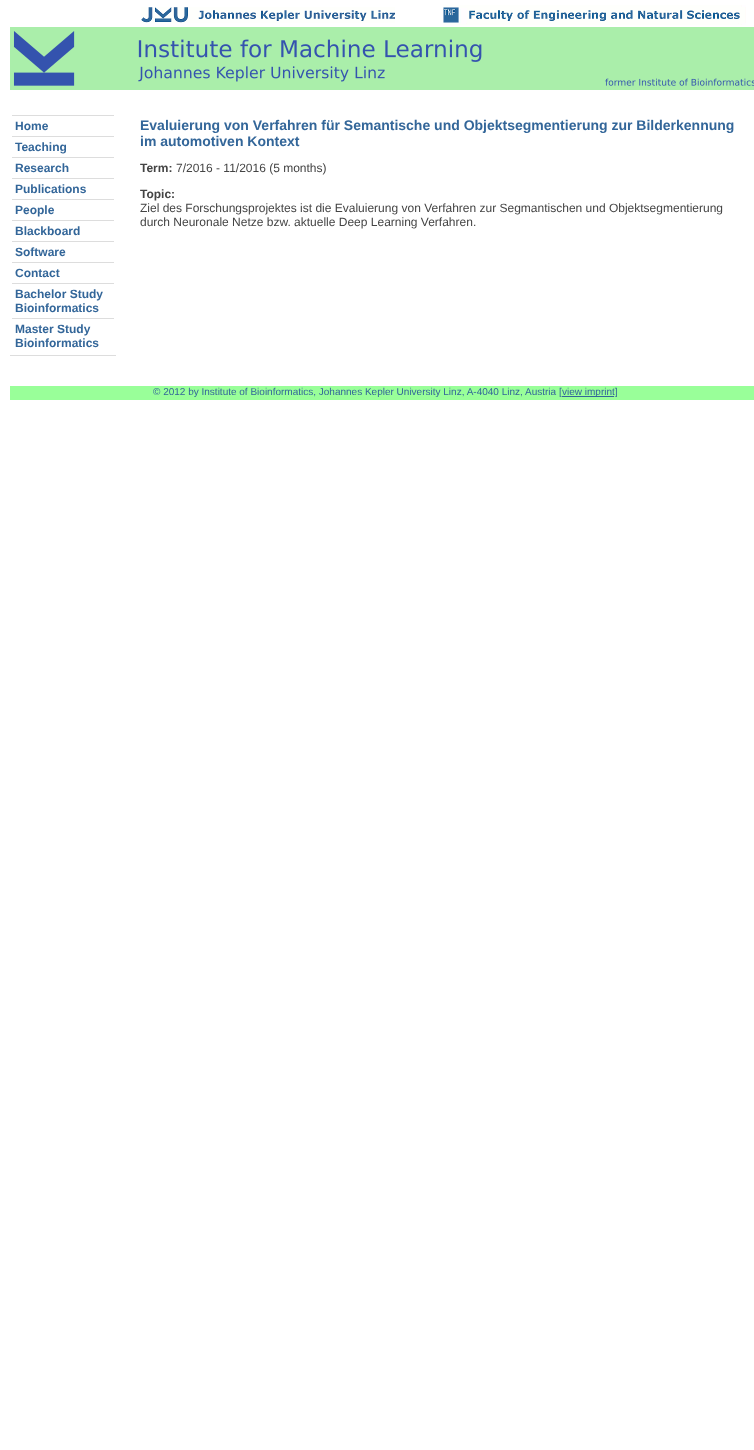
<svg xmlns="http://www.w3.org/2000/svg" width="754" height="1450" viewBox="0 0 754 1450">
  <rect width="100%" height="100%" fill="#ffffff"/>
  <image x="10" y="27" width="744" height="63" href="img1.png"/>
  <image x="141" y="7" width="254" height="16" href="img2.png"/>
  <image x="443" y="5" width="303" height="20" href="img3.png"/>
  <rect x="10" y="355" width="106" height="1" fill="#dddddd"/>
  <rect x="12" y="115" width="102" height="1" fill="#dddddd"/>
  <text x="15" y="130" font-family="Liberation Sans" font-size="12" font-weight="bold" fill="#336699">Home</text>
  <rect x="12" y="136" width="102" height="1" fill="#dddddd"/>
  <text x="15" y="151" font-family="Liberation Sans" font-size="12" font-weight="bold" fill="#336699">Teaching</text>
  <rect x="12" y="157" width="102" height="1" fill="#dddddd"/>
  <text x="15" y="172" font-family="Liberation Sans" font-size="12" font-weight="bold" fill="#336699">Research</text>
  <rect x="12" y="178" width="102" height="1" fill="#dddddd"/>
  <text x="15" y="193" font-family="Liberation Sans" font-size="12" font-weight="bold" fill="#336699">Publications</text>
  <rect x="12" y="199" width="102" height="1" fill="#dddddd"/>
  <text x="15" y="214" font-family="Liberation Sans" font-size="12" font-weight="bold" fill="#336699">People</text>
  <rect x="12" y="220" width="102" height="1" fill="#dddddd"/>
  <text x="15" y="235" font-family="Liberation Sans" font-size="12" font-weight="bold" fill="#336699">Blackboard</text>
  <rect x="12" y="241" width="102" height="1" fill="#dddddd"/>
  <text x="15" y="256" font-family="Liberation Sans" font-size="12" font-weight="bold" fill="#336699">Software</text>
  <rect x="12" y="262" width="102" height="1" fill="#dddddd"/>
  <text x="15" y="277" font-family="Liberation Sans" font-size="12" font-weight="bold" fill="#336699">Contact</text>
  <rect x="12" y="283" width="102" height="1" fill="#dddddd"/>
  <text x="15" y="298" font-family="Liberation Sans" font-size="12" font-weight="bold" fill="#336699">Bachelor Study</text>
  <text x="15" y="312" font-family="Liberation Sans" font-size="12" font-weight="bold" fill="#336699">Bioinformatics</text>
  <rect x="12" y="318" width="102" height="1" fill="#dddddd"/>
  <text x="15" y="333" font-family="Liberation Sans" font-size="12" font-weight="bold" fill="#336699">Master Study</text>
  <text x="15" y="347" font-family="Liberation Sans" font-size="12" font-weight="bold" fill="#336699">Bioinformatics</text>
  <text x="140" y="130" font-family="Liberation Sans" font-size="14" font-weight="bold" fill="#336699">Evaluierung von Verfahren für Semantische und Objektsegmentierung zur Bilderkennung</text>
  <text x="140" y="146" font-family="Liberation Sans" font-size="14" font-weight="bold" fill="#336699">im automotiven Kontext</text>
  <text x="140" y="172" font-family="Liberation Sans" font-size="12" font-weight="bold" fill="#444444">Term:</text>
  <text x="176" y="172" font-family="Liberation Sans" font-size="12" fill="#444444">7/2016 - 11/2016 (5 months)</text>
  <text x="140" y="198" font-family="Liberation Sans" font-size="12" font-weight="bold" fill="#444444">Topic:</text>
  <text x="140" y="212" font-family="Liberation Sans" font-size="12" fill="#444444">Ziel des Forschungsprojektes ist die Evaluierung von Verfahren zur Segmantischen und Objektsegmentierung</text>
  <text x="140" y="226" font-family="Liberation Sans" font-size="12" fill="#444444">durch Neuronale Netze bzw. aktuelle Deep Learning Verfahren.</text>
  <rect x="10" y="386" width="744" height="14" fill="#99ff99"/>
  <text x="153" y="395" font-family="Liberation Sans" font-size="10" fill="#336699">© 2012 by Institute of Bioinformatics, Johannes Kepler University Linz, A-4040 Linz, Austria [</text>
  <rect x="562" y="396" width="52" height="1" fill="#336699"/>
  <text x="562" y="395" font-family="Liberation Sans" font-size="10" fill="#336699">view imprint]</text>
</svg>
